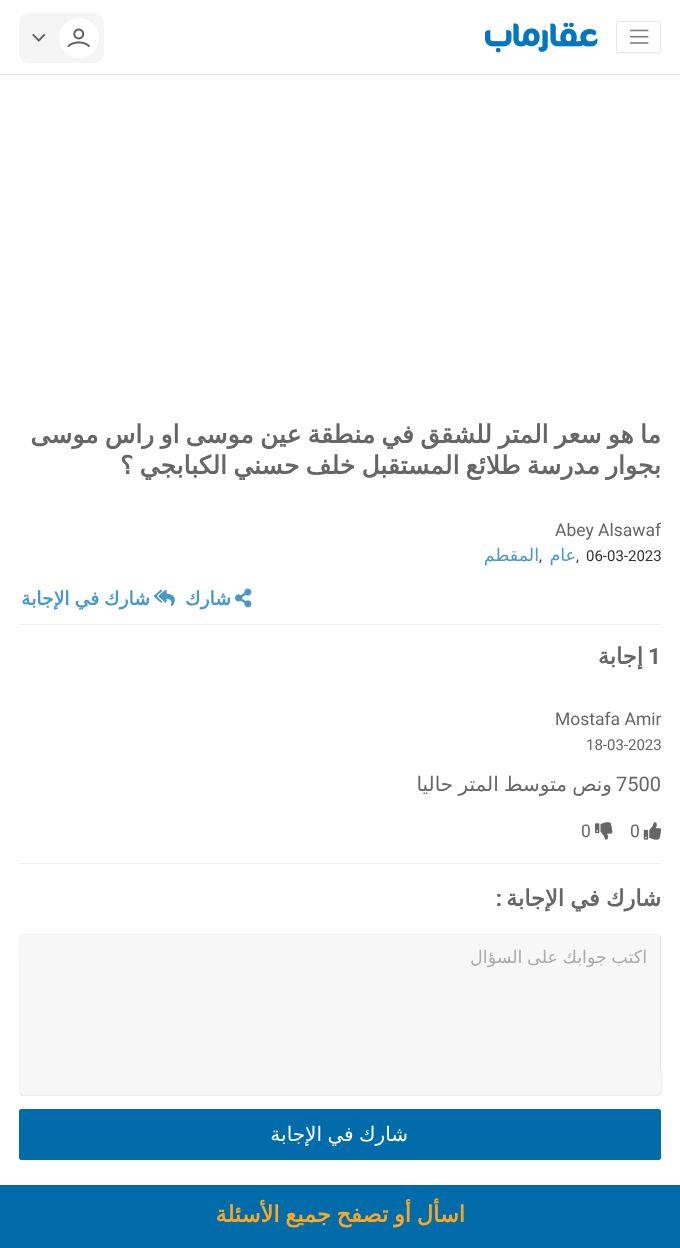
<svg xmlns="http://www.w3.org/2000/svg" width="680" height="1248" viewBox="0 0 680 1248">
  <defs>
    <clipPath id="clip1"><rect x="215" y="1198" width="250" height="32" rx="5"/></clipPath>
  </defs>
  <rect width="100%" height="100%" fill="#ffffff"/>
  <rect x="0" y="74" width="680" height="1" fill="#e0e0e0"/>
  <rect x="616.5" y="21.5" width="44" height="31" rx="2.5" fill="none" stroke="#e6e6e6"/>
  <image x="629" y="29" width="20" height="15" href="img1.png"/>
  <image x="485" y="23" width="113" height="30" href="img2.png"/>
  <rect x="19" y="13" width="85" height="50" rx="10" fill="#f5f5f5"/>
  <circle cx="79" cy="38" r="20" fill="#ffffff"/>
  <image x="67" y="28" width="23" height="19" href="img3.png"/>
  <image x="32" y="33" width="14" height="9" href="img4.png"/>
  <text x="661" y="443" word-spacing="-1.75" font-family="DejaVu Sans" font-size="25" font-weight="bold" direction="rtl" fill="#666666">ما هو سعر المتر للشقق في منطقة عين موسى او راس موسى</text>
  <text x="661" y="474" word-spacing="-1.75" font-family="DejaVu Sans" font-size="25" font-weight="bold" direction="rtl" fill="#666666">بجوار مدرسة طلائع المستقبل خلف حسني الكبابجي ؟</text>
  <text x="555" y="536" font-family="Roboto" font-size="17.5" fill="#666666">Abey Alsawaf</text>
  <text x="586" y="561" font-family="Roboto" font-size="15" fill="#333333">06-03-2023</text>
  <text x="576" y="561" font-family="Roboto" font-size="15" fill="#333333">,</text>
  <text x="576" y="561" font-family="DejaVu Sans" font-size="17.5" direction="rtl" fill="#4898ca">عام</text>
  <text x="539" y="561" font-family="Roboto" font-size="15" fill="#333333">,</text>
  <text x="539" y="561" font-family="DejaVu Sans" font-size="17.5" direction="rtl" fill="#4898ca">المقطم</text>
  <image x="235" y="588" width="17" height="20" href="img5.png"/>
  <text x="231" y="605" font-family="DejaVu Sans" font-size="18.75" font-weight="bold" direction="rtl" fill="#4898ca">شارك</text>
  <image x="153" y="589" width="22" height="18" href="img6.png"/>
  <text x="150" y="605" word-spacing="-1" font-family="DejaVu Sans" font-size="18.75" font-weight="bold" direction="rtl" fill="#4898ca">شارك في الإجابة</text>
  <rect x="19" y="624" width="642" height="1" fill="#f1f1f1"/>
  <text x="648" y="664" font-family="Roboto" font-size="22.5" font-weight="bold" fill="#666666">1</text>
  <text x="643" y="664" font-family="DejaVu Sans" font-size="22.5" font-weight="bold" direction="rtl" fill="#666666">إجابة</text>
  <text x="555" y="725" font-family="Roboto" font-size="17.5" fill="#666666">Mostafa Amir</text>
  <text x="586" y="750" font-family="Roboto" font-size="15" fill="#666666">18-03-2023</text>
  <text x="616" y="791" font-family="Roboto" font-size="20" fill="#666666">7500</text>
  <text x="612" y="791" word-spacing="-1" font-family="DejaVu Sans" font-size="20" direction="rtl" fill="#666666">ونص متوسط المتر حاليا</text>
  <image x="643" y="822" width="18" height="18" href="img7.png"/>
  <text x="630" y="837" font-family="Roboto" font-size="17.5" fill="#666666">0</text>
  <image x="595" y="822" width="18" height="18" href="img8.png"/>
  <text x="581" y="837" font-family="Roboto" font-size="17.5" fill="#666666">0</text>
  <rect x="19" y="863" width="642" height="1" fill="#f1f1f1"/>
  <text x="661" y="906" word-spacing="-1" font-family="DejaVu Sans" font-size="22.5" font-weight="bold" direction="rtl" fill="#666666">شارك في الإجابة</text>
  <text x="502" y="906" font-family="Roboto" font-size="22.5" font-weight="bold" direction="rtl" fill="#666666">:</text>
  <rect x="19" y="934" width="642" height="162" rx="4" fill="#f7f7f7"/>
  <path d="M659.5 935.5L660.5 937.5V1066.5C660.5 1067.5 665.5 1095.5 657.5 1095.5H22.5L20.5 1094.5" fill="none" stroke="#959595" stroke-opacity="0.16" stroke-width="1.2"/>
  <path d="M20.5 1094.5L19.5 1092.5V963.5C19.5 962.5 14.5 934.5 22.5 934.5H657.5L659.5 935.5" fill="none" stroke="#dfdfdf" stroke-opacity="0.16" stroke-width="1.2"/>
  <text x="647" y="963" word-spacing="-1" font-family="DejaVu Sans" font-size="17.5" direction="rtl" fill="#aaabad">اكتب جوابك على السؤال</text>
  <rect x="19" y="1109" width="642" height="51" rx="2.5" fill="#026baa"/>
  <text x="408" y="1141" word-spacing="-1" font-family="DejaVu Sans" font-size="20" direction="rtl" fill="#ffffff">شارك في الإجابة</text>
  <rect x="0" y="1185" width="680" height="63" fill="#026baa"/>
  <g clip-path="url(#clip1)">
    <text x="465" y="1222" word-spacing="-1.5" font-family="DejaVu Sans" font-size="22.5" font-weight="bold" direction="rtl" fill="#f9a825">اسأل أو تصفح جميع الأسئلة</text>
  </g>
</svg>
